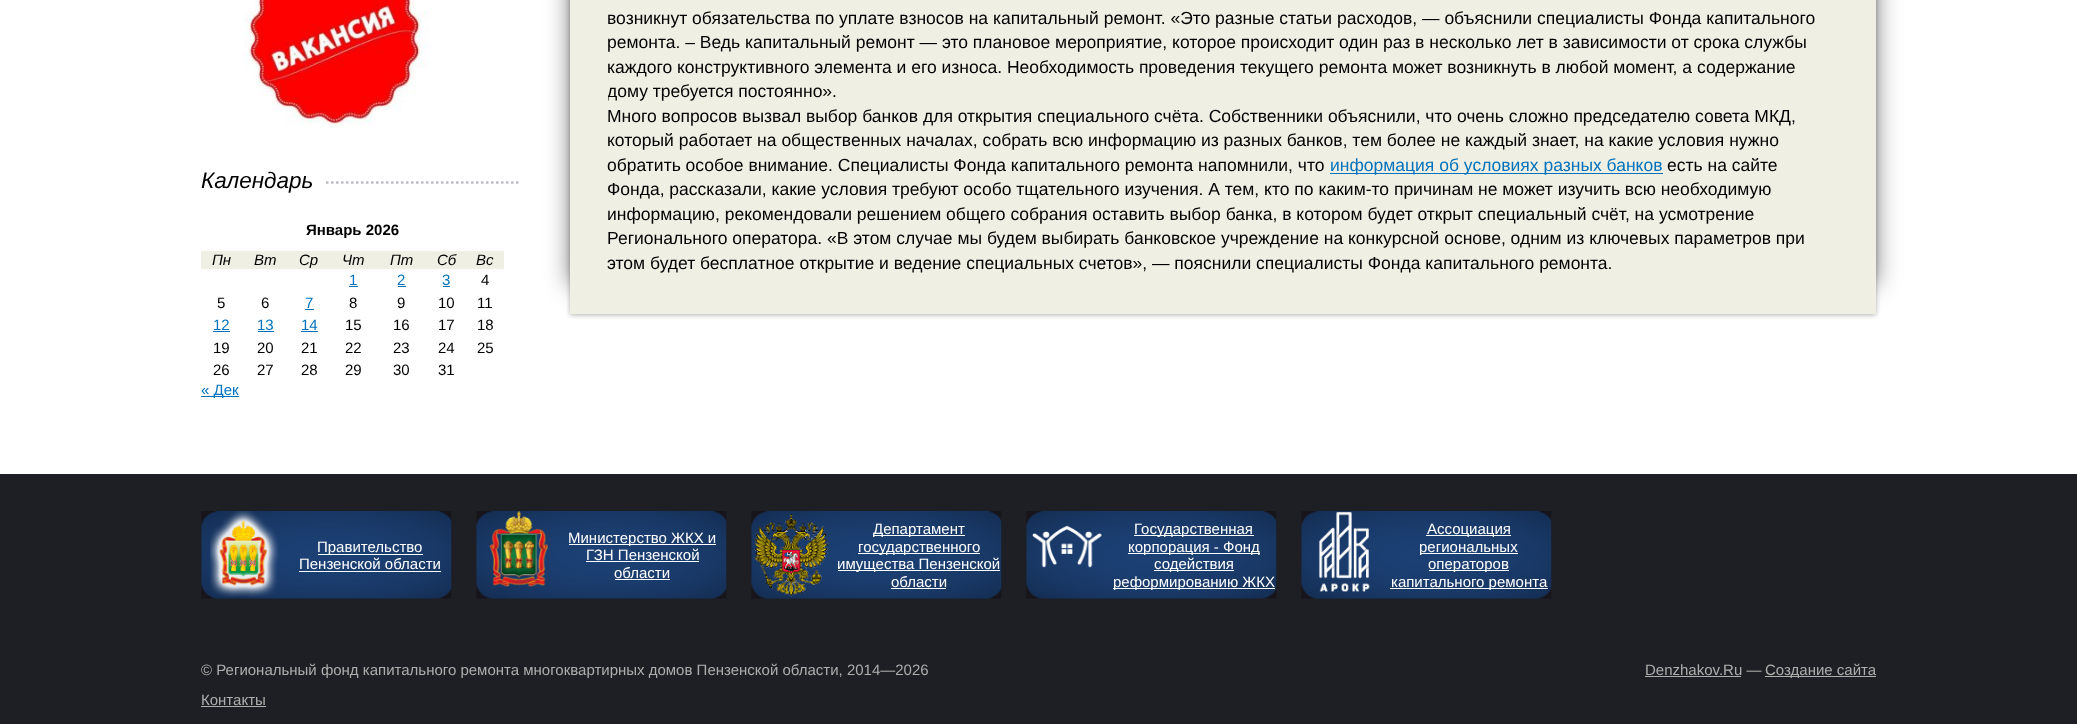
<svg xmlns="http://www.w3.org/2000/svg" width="2077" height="724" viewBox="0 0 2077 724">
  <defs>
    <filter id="blur1" x="-50%" y="-200%" width="200%" height="500%"><feGaussianBlur stdDeviation="12.5"/></filter>
    <filter id="blur2" x="-50%" y="-200%" width="200%" height="500%"><feGaussianBlur stdDeviation="2.5"/></filter>
    <clipPath id="clip1"><rect x="608" y="0" width="1231" height="289"/></clipPath>
  </defs>
  <rect width="100%" height="100%" fill="#ffffff"/>
  <image x="244" y="0" width="186" height="128" href="img1.png"/>
  <path d="M201 182.5H520" fill="none" stroke="#bbbdc5" stroke-width="2.5" stroke-dasharray="2.5 2.5"/>
  <rect x="201" y="181" width="123" height="3" fill="#ffffff"/>
  <text x="201" y="188" font-family="Liberation Sans" font-size="22.5" font-style="italic" fill="#000000">Календарь</text>
  <text x="306" y="235" font-family="Liberation Sans" font-size="15" font-weight="bold" fill="#000000">Январь 2026</text>
  <rect x="201" y="251" width="303" height="18" fill="#efefe4"/>
  <text x="212" y="265" font-family="Liberation Sans" font-size="15" font-style="italic" fill="#000000">Пн</text>
  <text x="254" y="265" font-family="Liberation Sans" font-size="15" font-style="italic" fill="#000000">Вт</text>
  <text x="299" y="265" font-family="Liberation Sans" font-size="15" font-style="italic" fill="#000000">Ср</text>
  <text x="342" y="265" font-family="Liberation Sans" font-size="15" font-style="italic" fill="#000000">Чт</text>
  <text x="390" y="265" font-family="Liberation Sans" font-size="15" font-style="italic" fill="#000000">Пт</text>
  <text x="437" y="265" font-family="Liberation Sans" font-size="15" font-style="italic" fill="#000000">Сб</text>
  <text x="476" y="265" font-family="Liberation Sans" font-size="15" font-style="italic" fill="#000000">Вс</text>
  <text x="349" y="285" font-family="Liberation Sans" font-size="15" fill="#0072bc">1</text>
  <rect x="349" y="286" width="9" height="1" fill="#0072bc"/>
  <text x="397" y="285" font-family="Liberation Sans" font-size="15" fill="#0072bc">2</text>
  <rect x="398" y="286" width="8" height="1" fill="#0072bc"/>
  <text x="442" y="285" font-family="Liberation Sans" font-size="15" fill="#0072bc">3</text>
  <rect x="443" y="286" width="7" height="1" fill="#0072bc"/>
  <text x="481" y="285" font-family="Liberation Sans" font-size="15" fill="#000000">4</text>
  <text x="217" y="308" font-family="Liberation Sans" font-size="15" fill="#000000">5</text>
  <text x="261" y="308" font-family="Liberation Sans" font-size="15" fill="#000000">6</text>
  <text x="305" y="308" font-family="Liberation Sans" font-size="15" fill="#0072bc">7</text>
  <rect x="305" y="309" width="9" height="1" fill="#0072bc"/>
  <text x="349" y="308" font-family="Liberation Sans" font-size="15" fill="#000000">8</text>
  <text x="397" y="308" font-family="Liberation Sans" font-size="15" fill="#000000">9</text>
  <text x="438" y="308" font-family="Liberation Sans" font-size="15" fill="#000000">10</text>
  <text x="477" y="308" font-family="Liberation Sans" font-size="15" fill="#000000">11</text>
  <text x="213" y="330" font-family="Liberation Sans" font-size="15" fill="#0072bc">12</text>
  <rect x="213" y="331" width="17" height="1" fill="#0072bc"/>
  <text x="257" y="330" font-family="Liberation Sans" font-size="15" fill="#0072bc">13</text>
  <rect x="258" y="331" width="16" height="1" fill="#0072bc"/>
  <text x="301" y="330" font-family="Liberation Sans" font-size="15" fill="#0072bc">14</text>
  <rect x="301" y="331" width="17" height="1" fill="#0072bc"/>
  <text x="345" y="330" font-family="Liberation Sans" font-size="15" fill="#000000">15</text>
  <text x="393" y="330" font-family="Liberation Sans" font-size="15" fill="#000000">16</text>
  <text x="438" y="330" font-family="Liberation Sans" font-size="15" fill="#000000">17</text>
  <text x="477" y="330" font-family="Liberation Sans" font-size="15" fill="#000000">18</text>
  <text x="213" y="353" font-family="Liberation Sans" font-size="15" fill="#000000">19</text>
  <text x="257" y="353" font-family="Liberation Sans" font-size="15" fill="#000000">20</text>
  <text x="301" y="353" font-family="Liberation Sans" font-size="15" fill="#000000">21</text>
  <text x="345" y="353" font-family="Liberation Sans" font-size="15" fill="#000000">22</text>
  <text x="393" y="353" font-family="Liberation Sans" font-size="15" fill="#000000">23</text>
  <text x="438" y="353" font-family="Liberation Sans" font-size="15" fill="#000000">24</text>
  <text x="477" y="353" font-family="Liberation Sans" font-size="15" fill="#000000">25</text>
  <text x="213" y="375" font-family="Liberation Sans" font-size="15" fill="#000000">26</text>
  <text x="257" y="375" font-family="Liberation Sans" font-size="15" fill="#000000">27</text>
  <text x="301" y="375" font-family="Liberation Sans" font-size="15" fill="#000000">28</text>
  <text x="345" y="375" font-family="Liberation Sans" font-size="15" fill="#000000">29</text>
  <text x="393" y="375" font-family="Liberation Sans" font-size="15" fill="#000000">30</text>
  <text x="438" y="375" font-family="Liberation Sans" font-size="15" fill="#000000">31</text>
  <rect x="201" y="396" width="38" height="1" fill="#0072bc"/>
  <text x="201" y="395" font-family="Liberation Sans" font-size="15" fill="#0072bc">« Дек</text>
  <rect x="628" y="-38" width="1248" height="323" fill="#000000" fill-opacity="0.5" filter="url(#blur1)"/>
  <rect x="570" y="-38" width="1249" height="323" fill="#000000" fill-opacity="0.5" filter="url(#blur1)"/>
  <rect x="570" y="-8" width="1306" height="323" fill="#000000" fill-opacity="0.3" filter="url(#blur2)"/>
  <rect x="570" y="0" width="1306" height="314" fill="#efefe4"/>
  <text x="607" y="24" font-family="Liberation Sans" font-size="17.5" fill="#000000">возникнут обязательства по уплате взносов на капитальный ремонт. «Это разные статьи расходов, — объяснили специалисты Фонда капитального</text>
  <text x="607" y="48" font-family="Liberation Sans" font-size="17.5" fill="#000000">ремонта. – Ведь капитальный ремонт — это плановое мероприятие, которое происходит один раз в несколько лет в зависимости от срока службы</text>
  <text x="607" y="73" font-family="Liberation Sans" font-size="17.5" fill="#000000">каждого конструктивного элемента и его износа. Необходимость проведения текущего ремонта может возникнуть в любой момент, а содержание</text>
  <g clip-path="url(#clip1)">
    <text x="607" y="97" font-family="Liberation Sans" font-size="17.5" fill="#000000">дому требуется постоянно».</text>
  </g>
  <text x="607" y="122" font-family="Liberation Sans" font-size="17.5" fill="#000000">Много вопросов вызвал выбор банков для открытия специального счёта. Собственники объяснили, что очень сложно председателю совета МКД,</text>
  <text x="607" y="146" font-family="Liberation Sans" font-size="17.5" fill="#000000">который работает на общественных началах, собрать всю информацию из разных банков, тем более не каждый знает, на какие условия нужно</text>
  <text x="607" y="171" font-family="Liberation Sans" font-size="17.5" fill="#000000">обратить особое внимание. Специалисты Фонда капитального ремонта напомнили, что</text>
  <rect x="1330" y="173" width="333" height="1" fill="#0072bc"/>
  <text x="1330" y="171" font-family="Liberation Sans" font-size="17.5" fill="#0072bc">информация об условиях разных банков</text>
  <text x="1667" y="171" font-family="Liberation Sans" font-size="17.5" fill="#000000">есть на сайте</text>
  <text x="607" y="195" font-family="Liberation Sans" font-size="17.5" fill="#000000">Фонда, рассказали, какие условия требуют особо тщательного изучения. А тем, кто по каким-то причинам не может изучить всю необходимую</text>
  <text x="607" y="220" font-family="Liberation Sans" font-size="17.5" fill="#000000">информацию, рекомендовали решением общего собрания оставить выбор банка, в котором будет открыт специальный счёт, на усмотрение</text>
  <text x="607" y="244" font-family="Liberation Sans" font-size="17.5" fill="#000000">Регионального оператора. «В этом случае мы будем выбирать банковское учреждение на конкурсной основе, одним из ключевых параметров при</text>
  <text x="607" y="269" font-family="Liberation Sans" font-size="17.5" fill="#000000">этом будет бесплатное открытие и ведение специальных счетов», — пояснили специалисты Фонда капитального ремонта.</text>
  <rect x="0" y="474" width="2077" height="250" fill="#1e1f25"/>
  <image x="201" y="511" width="251" height="88" href="img2.png"/>
  <image x="210" y="511" width="69" height="86" href="img3.png"/>
  <rect x="318" y="554" width="105" height="1" fill="#ffffff"/>
  <text x="317" y="552" font-family="Liberation Sans" font-size="15" fill="#ffffff">Правительство</text>
  <text x="299" y="569" font-family="Liberation Sans" font-size="15" fill="#ffffff">Пензенской области</text>
  <rect x="299" y="571" width="142" height="1" fill="#ffffff"/>
  <image x="476" y="511" width="251" height="88" href="img4.png"/>
  <image x="489" y="511" width="59" height="76" href="img5.png"/>
  <rect x="569" y="544" width="147" height="1" fill="#ffffff"/>
  <text x="568" y="543" font-family="Liberation Sans" font-size="15" fill="#ffffff">Министерство ЖКХ и</text>
  <text x="586" y="560" font-family="Liberation Sans" font-size="15" fill="#ffffff">ГЗН Пензенской</text>
  <rect x="586" y="561" width="113" height="1" fill="#ffffff"/>
  <text x="614" y="578" font-family="Liberation Sans" font-size="15" fill="#ffffff">области</text>
  <rect x="615" y="579" width="55" height="1" fill="#ffffff"/>
  <image x="751" y="511" width="251" height="88" href="img2.png"/>
  <image x="754" y="514" width="75" height="83" href="img6.png"/>
  <rect x="873" y="535" width="92" height="1" fill="#ffffff"/>
  <text x="873" y="534" font-family="Liberation Sans" font-size="15" fill="#ffffff">Департамент</text>
  <rect x="858" y="553" width="122" height="1" fill="#ffffff"/>
  <text x="858" y="552" font-family="Liberation Sans" font-size="15" fill="#ffffff">государственного</text>
  <rect x="838" y="570" width="162" height="1" fill="#ffffff"/>
  <text x="837" y="569" font-family="Liberation Sans" font-size="15" fill="#ffffff">имущества Пензенской</text>
  <text x="891" y="587" font-family="Liberation Sans" font-size="15" fill="#ffffff">области</text>
  <rect x="891" y="588" width="55" height="1" fill="#ffffff"/>
  <image x="1026" y="511" width="251" height="88" href="img7.png"/>
  <image x="1032" y="525" width="70" height="43" href="img8.png"/>
  <rect x="1134" y="535" width="120" height="1" fill="#ffffff"/>
  <text x="1134" y="534" font-family="Liberation Sans" font-size="15" fill="#ffffff">Государственная</text>
  <rect x="1128" y="553" width="132" height="1" fill="#ffffff"/>
  <text x="1128" y="552" font-family="Liberation Sans" font-size="15" fill="#ffffff">корпорация - Фонд</text>
  <rect x="1154" y="570" width="80" height="1" fill="#ffffff"/>
  <text x="1154" y="569" font-family="Liberation Sans" font-size="15" fill="#ffffff">содействия</text>
  <rect x="1113" y="588" width="162" height="1" fill="#ffffff"/>
  <text x="1113" y="587" font-family="Liberation Sans" font-size="15" fill="#ffffff">реформированию ЖКХ</text>
  <image x="1301" y="511" width="251" height="88" href="img2.png"/>
  <image x="1318" y="511" width="52" height="81" href="img9.png"/>
  <rect x="1426" y="535" width="85" height="1" fill="#ffffff"/>
  <text x="1427" y="534" font-family="Liberation Sans" font-size="15" fill="#ffffff">Ассоциация</text>
  <rect x="1420" y="553" width="98" height="1" fill="#ffffff"/>
  <text x="1419" y="552" font-family="Liberation Sans" font-size="15" fill="#ffffff">региональных</text>
  <rect x="1429" y="570" width="80" height="1" fill="#ffffff"/>
  <text x="1428" y="569" font-family="Liberation Sans" font-size="15" fill="#ffffff">операторов</text>
  <rect x="1390" y="588" width="158" height="1" fill="#ffffff"/>
  <text x="1391" y="587" font-family="Liberation Sans" font-size="15" fill="#ffffff">капитального ремонта</text>
  <text x="201" y="675" font-family="Liberation Sans" font-size="15" fill="#aeaead">© Региональный фонд капитального ремонта многоквартирных домов Пензенской области, 2014—2026</text>
  <text x="1645" y="675" font-family="Liberation Sans" font-size="15" fill="#aeaead">Denzhakov.Ru —</text>
  <rect x="1645" y="676" width="96" height="1" fill="#aeaead"/>
  <rect x="1765" y="676" width="111" height="1" fill="#aeaead"/>
  <text x="1765" y="675" font-family="Liberation Sans" font-size="15" fill="#aeaead">Создание сайта</text>
  <text x="201" y="705" font-family="Liberation Sans" font-size="15" fill="#aeaead">Контакты</text>
  <rect x="201" y="706" width="65" height="1" fill="#aeaead"/>
</svg>
